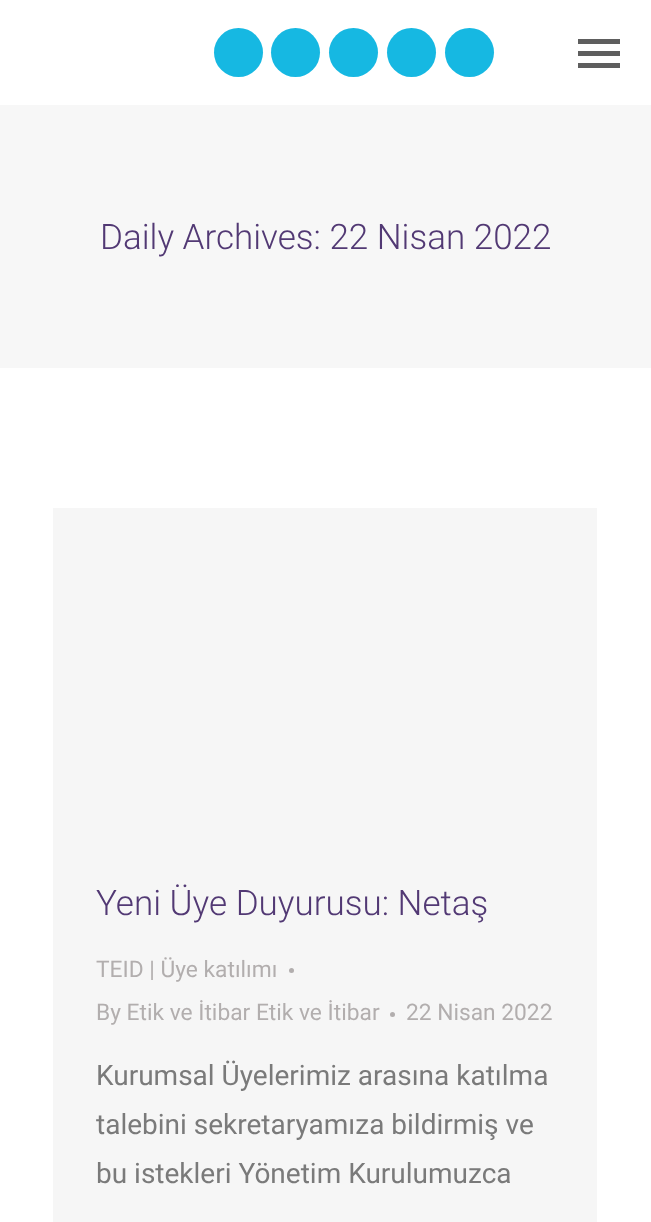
<svg xmlns="http://www.w3.org/2000/svg" width="651" height="1222" viewBox="0 0 651 1222">
  <rect width="100%" height="100%" fill="#ffffff"/>
  <circle cx="238.5" cy="52.5" r="24.5" fill="#16b8e2"/>
  <circle cx="295.5" cy="52.5" r="24.5" fill="#16b8e2"/>
  <circle cx="353.5" cy="52.5" r="24.5" fill="#16b8e2"/>
  <circle cx="411.5" cy="52.5" r="24.5" fill="#16b8e2"/>
  <circle cx="469.5" cy="52.5" r="24.5" fill="#16b8e2"/>
  <rect x="578" y="39" width="42" height="5" fill="#5e5e5e"/>
  <rect x="578" y="51" width="42" height="5" fill="#5e5e5e"/>
  <rect x="578" y="63" width="42" height="5" fill="#5e5e5e"/>
  <rect x="0" y="105" width="651" height="263" fill="#f7f7f7"/>
  <text x="100" y="249" font-family="Roboto" font-size="35" font-weight="300" fill="#523974">Daily Archives: 22 Nisan 2022</text>
  <rect x="53" y="508" width="544" height="714" fill="#f6f6f6"/>
  <text x="96" y="915" font-family="Roboto" font-size="35" font-weight="300" fill="#523974">Yeni Üye Duyurusu: Netaş</text>
  <text x="96" y="977" font-family="Roboto" font-size="22.75" fill="#b2aeae">TEID | Üye katılımı</text>
  <circle cx="291.5" cy="970.5" r="2.5" fill="#b2aeae"/>
  <text x="96" y="1020" font-family="Roboto" font-size="22.75" fill="#b2aeae">By Etik ve İtibar Etik ve İtibar</text>
  <circle cx="392.5" cy="1014.5" r="2.5" fill="#b2aeae"/>
  <text x="406" y="1020" font-family="Roboto" font-size="22.75" fill="#b2aeae">22 Nisan 2022</text>
  <text x="96" y="1085" font-family="Roboto" font-size="28" fill="#7a7a7a">Kurumsal Üyelerimiz arasına katılma</text>
  <text x="96" y="1134" font-family="Roboto" font-size="28" fill="#7a7a7a">talebini sekretaryamıza bildirmiş ve</text>
  <text x="96" y="1183" font-family="Roboto" font-size="28" fill="#7a7a7a">bu istekleri Yönetim Kurulumuzca</text>
</svg>
